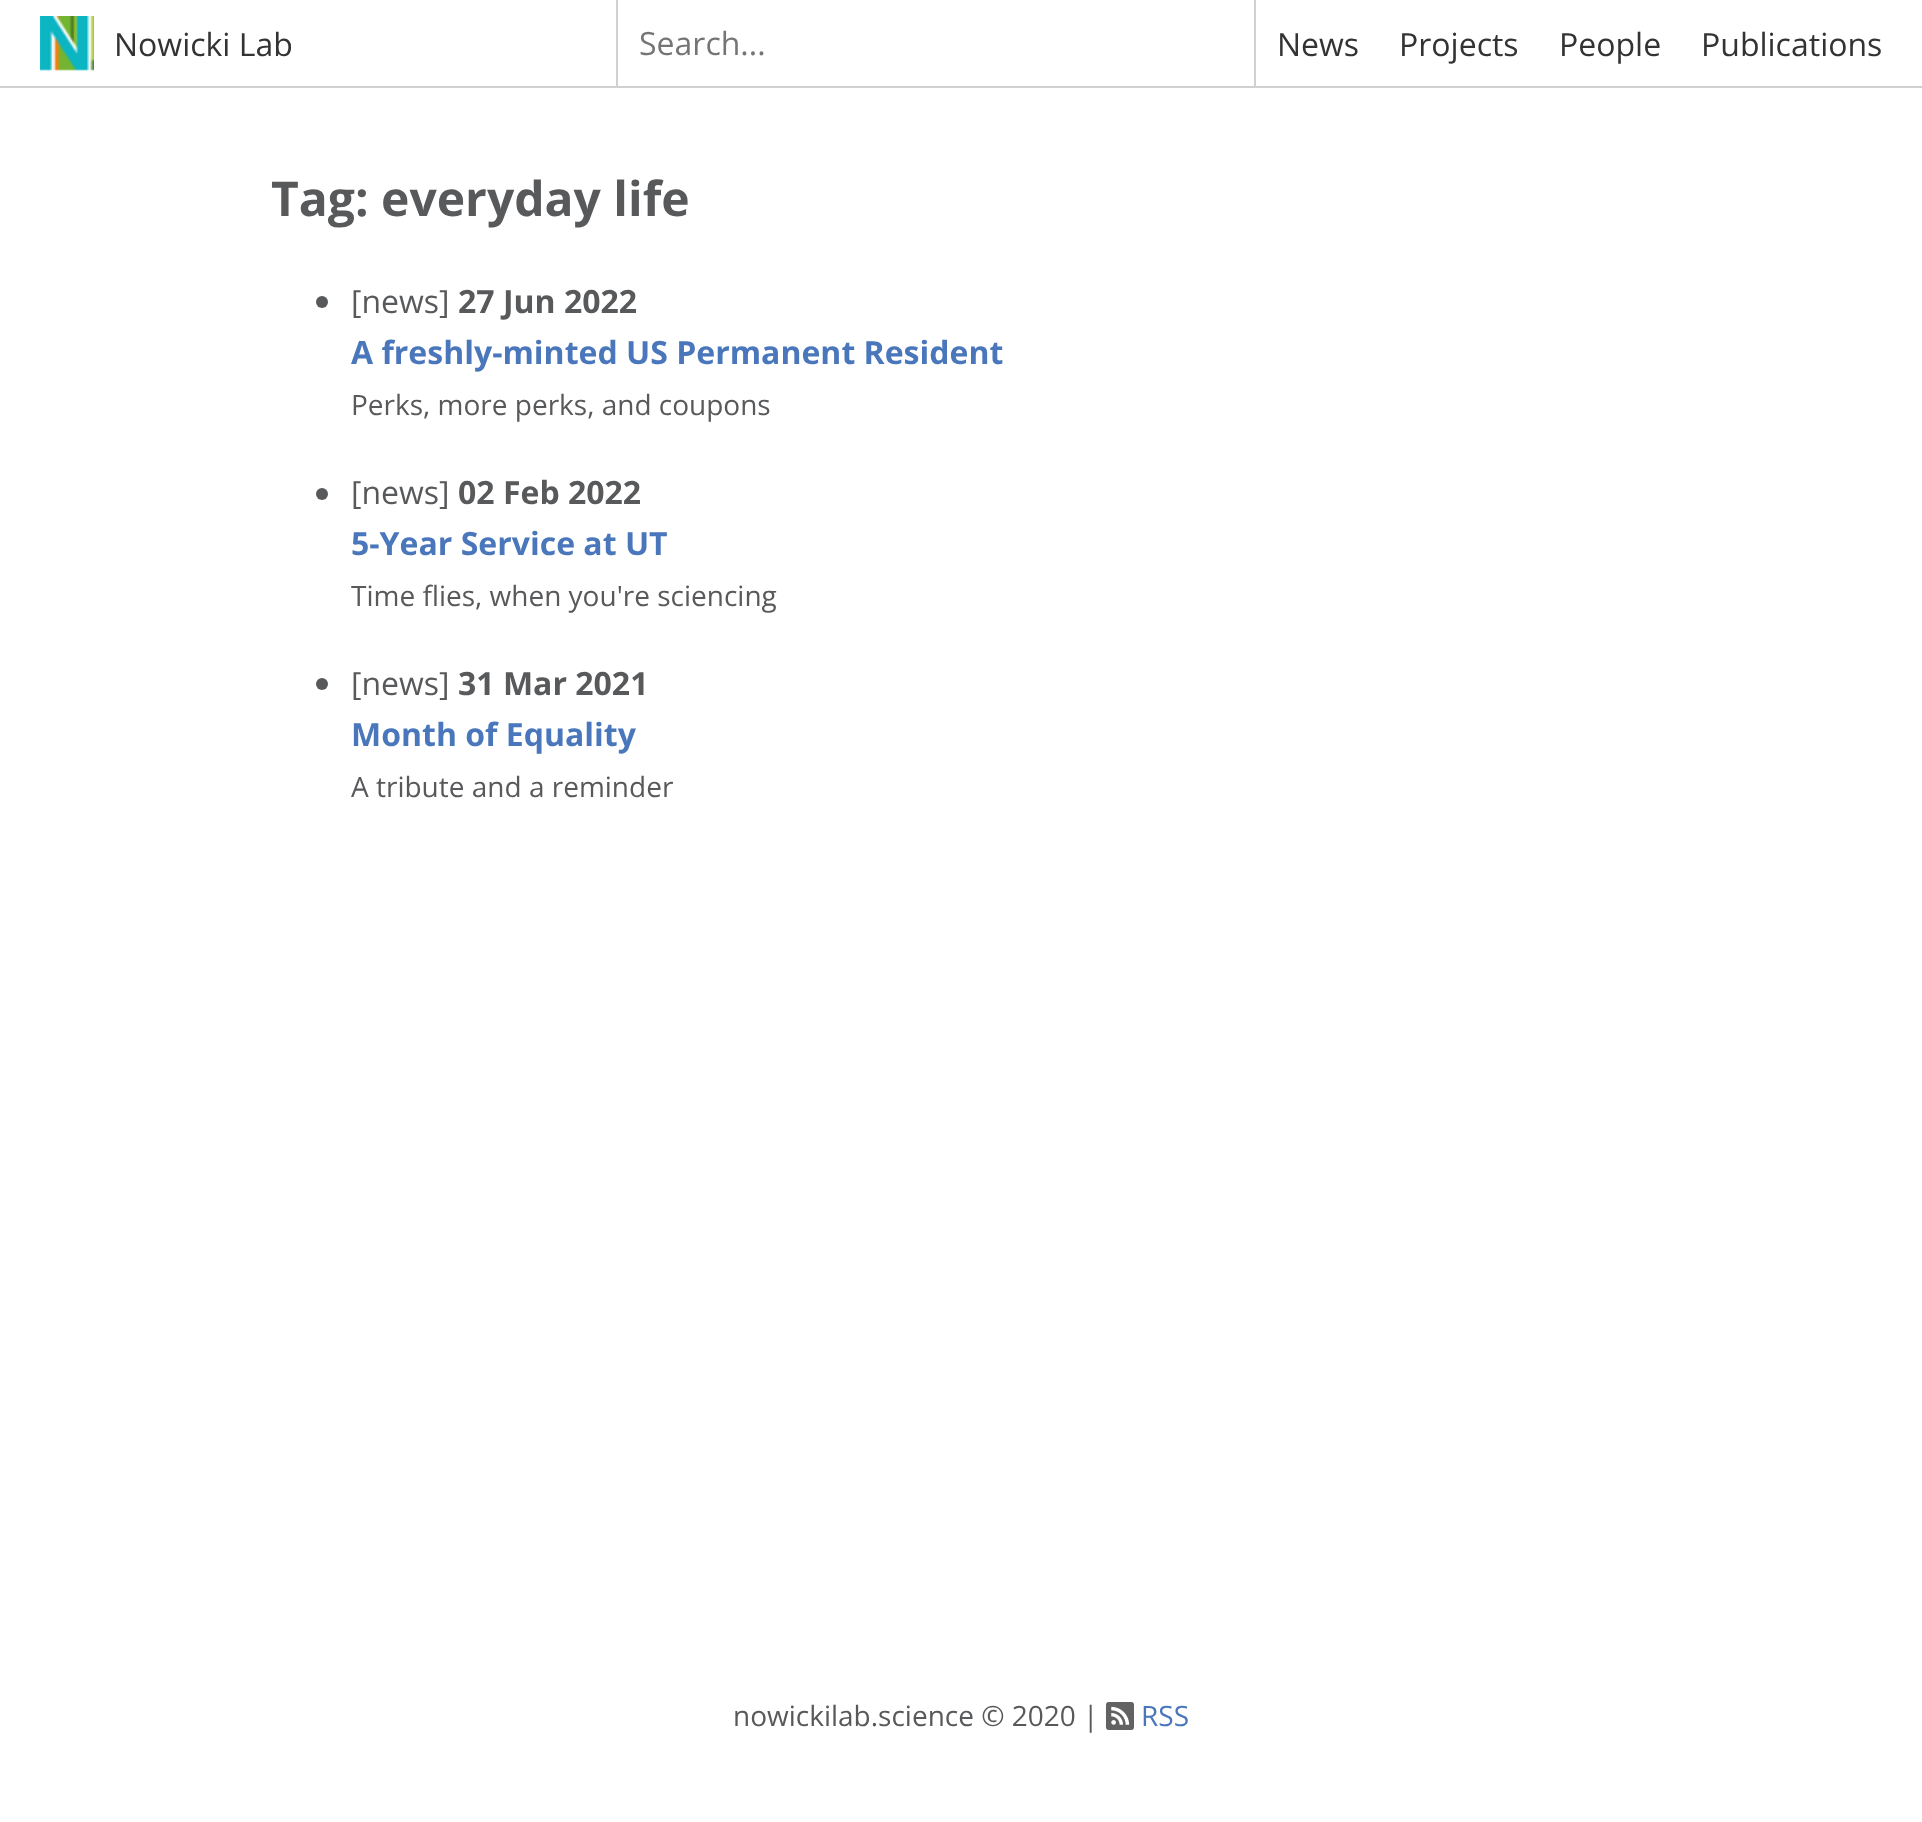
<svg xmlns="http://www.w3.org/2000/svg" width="1922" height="1822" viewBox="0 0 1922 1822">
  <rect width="100%" height="100%" fill="#ffffff"/>
  <rect x="0" y="86" width="1922" height="2" fill="#d1d1d1"/>
  <image x="40" y="16" width="54" height="55" href="img1.png"/>
  <text x="114" y="56" font-family="Open Sans" font-size="32" fill="#333333">Nowicki Lab</text>
  <rect x="1254" y="0" width="2" height="86" fill="#d1d1d1"/>
  <rect x="616" y="0" width="2" height="86" fill="#d1d1d1"/>
  <text x="639" y="55" font-family="Open Sans" font-size="32" fill="#757575">Search...</text>
  <text x="1277" y="56" font-family="Open Sans" font-size="32" fill="#333333">News</text>
  <text x="1399" y="56" font-family="Open Sans" font-size="32" fill="#333333">Projects</text>
  <text x="1559" y="56" font-family="Open Sans" font-size="32" fill="#333333">People</text>
  <text x="1701" y="56" font-family="Open Sans" font-size="32" fill="#333333">Publications</text>
  <text x="271" y="216" font-family="Open Sans" font-size="48" font-weight="bold" fill="#58595b">Tag: everyday life</text>
  <circle cx="322" cy="302" r="6" fill="#58595b"/>
  <text x="351" y="313" font-family="Open Sans" font-size="32" fill="#58595b">[news]</text>
  <text x="458" y="313" font-family="Open Sans" font-size="32" font-weight="bold" fill="#58595b">27 Jun 2022</text>
  <text x="351" y="364" font-family="Open Sans" font-size="32" font-weight="bold" fill="#4a77bb">A freshly-minted US Permanent Resident</text>
  <text x="351" y="415" font-family="Open Sans" font-size="28" fill="#58595b">Perks, more perks, and coupons</text>
  <circle cx="322" cy="494" r="6" fill="#58595b"/>
  <text x="351" y="504" font-family="Open Sans" font-size="32" fill="#58595b">[news]</text>
  <text x="458" y="504" font-family="Open Sans" font-size="32" font-weight="bold" fill="#58595b">02 Feb 2022</text>
  <text x="351" y="555" font-family="Open Sans" font-size="32" font-weight="bold" fill="#4a77bb">5-Year Service at UT</text>
  <text x="351" y="606" font-family="Open Sans" font-size="28" fill="#58595b">Time flies, when you're sciencing</text>
  <circle cx="322" cy="684" r="6" fill="#58595b"/>
  <text x="351" y="695" font-family="Open Sans" font-size="32" fill="#58595b">[news]</text>
  <text x="458" y="695" font-family="Open Sans" font-size="32" font-weight="bold" fill="#58595b">31 Mar 2021</text>
  <text x="351" y="746" font-family="Open Sans" font-size="32" font-weight="bold" fill="#4a77bb">Month of Equality</text>
  <text x="351" y="797" font-family="Open Sans" font-size="28" fill="#58595b">A tribute and a reminder</text>
  <text x="733" y="1726" font-family="Open Sans" font-size="28" fill="#58595b">nowickilab.science © 2020 |</text>
  <image x="1106" y="1702" width="28" height="28" href="img2.png"/>
  <text x="1141" y="1726" font-family="Open Sans" font-size="28" fill="#4a77bb">RSS</text>
</svg>
